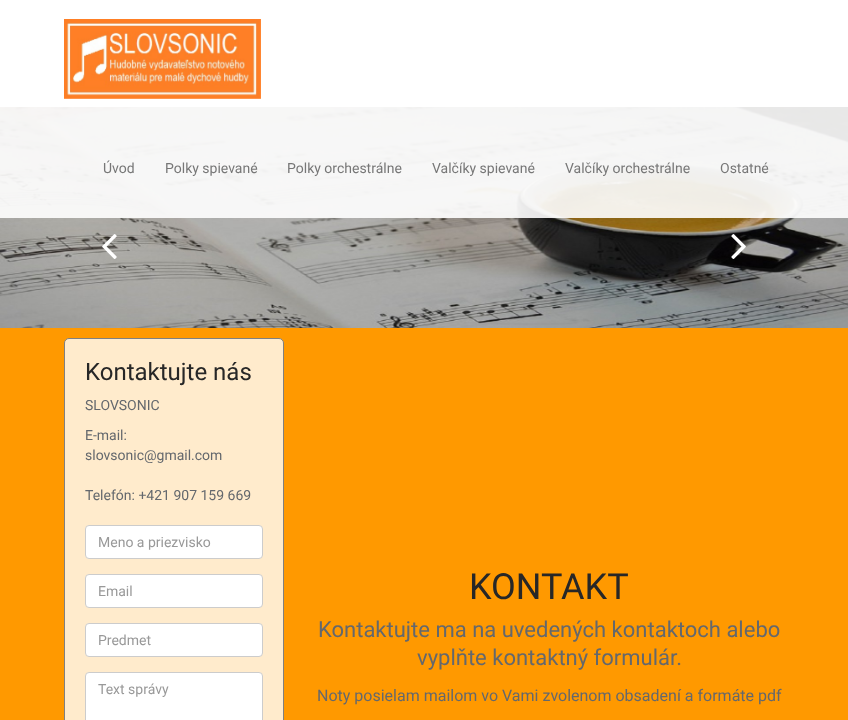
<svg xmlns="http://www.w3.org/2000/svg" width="848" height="720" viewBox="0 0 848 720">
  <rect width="100%" height="100%" fill="#ffffff"/>
  <image x="0" y="107" width="848" height="221" href="img1.png"/>
  <image x="102" y="234" width="15" height="25" href="img2.png"/>
  <image x="731" y="234" width="15" height="25" href="img3.png"/>
  <rect x="0" y="107" width="848" height="111" fill="#ffffff" fill-opacity="0.9"/>
  <image x="64" y="19" width="197" height="80" href="img4.png"/>
  <text x="103" y="173" font-family="Roboto" font-size="14" fill="#777777">Úvod</text>
  <text x="165" y="173" font-family="Roboto" font-size="14" fill="#777777">Polky spievané</text>
  <text x="287" y="173" font-family="Roboto" font-size="14" fill="#777777">Polky orchestrálne</text>
  <text x="432" y="173" font-family="Roboto" font-size="14" fill="#777777">Valčíky spievané</text>
  <text x="565" y="173" font-family="Roboto" font-size="14" fill="#777777">Valčíky orchestrálne</text>
  <text x="720" y="173" font-family="Roboto" font-size="14" fill="#777777">Ostatné</text>
  <rect x="0" y="328" width="848" height="392" fill="#ff9900"/>
  <rect x="64.5" y="338.5" width="219" height="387" rx="4.5" fill="#ffebcc" stroke="#808080"/>
  <text x="85" y="380" font-family="Roboto" font-size="24" fill="#272727">Kontaktujte nás</text>
  <text x="85" y="410" font-family="Roboto" font-size="14" fill="#64686d">SLOVSONIC</text>
  <text x="85" y="440" font-family="Roboto" font-size="14" fill="#64686d">E-mail:</text>
  <text x="85" y="460" font-family="Roboto" font-size="14" fill="#64686d">slovsonic@gmail.com</text>
  <text x="85" y="500" font-family="Roboto" font-size="14" fill="#64686d">Telefón: +421 907 159 669</text>
  <rect x="85.5" y="525.5" width="177" height="33" rx="3.5" fill="#ffffff" stroke="#cccccc"/>
  <text x="98" y="547" font-family="Roboto" font-size="14" fill="#999999">Meno a priezvisko</text>
  <rect x="85.5" y="574.5" width="177" height="33" rx="3.5" fill="#ffffff" stroke="#cccccc"/>
  <text x="98" y="596" font-family="Roboto" font-size="14" fill="#999999">Email</text>
  <rect x="85.5" y="623.5" width="177" height="33" rx="3.5" fill="#ffffff" stroke="#cccccc"/>
  <text x="98" y="645" font-family="Roboto" font-size="14" fill="#999999">Predmet</text>
  <rect x="85.5" y="672.5" width="177" height="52" rx="3.5" fill="#ffffff" stroke="#cccccc"/>
  <text x="98" y="694" font-family="Roboto" font-size="14" fill="#999999">Text správy</text>
  <text x="469" y="599" font-family="Roboto" font-size="36" fill="#272727">KONTAKT</text>
  <text x="318" y="637" font-family="Roboto" font-size="22" fill="#64686d">Kontaktujte ma na uvedených kontaktoch alebo</text>
  <text x="417" y="665" font-family="Roboto" font-size="22" fill="#64686d">vyplňte kontaktný formulár.</text>
  <text x="317" y="701" font-family="Roboto" font-size="16" fill="#64686d">Noty posielam mailom vo Vami zvolenom obsadení a formáte pdf</text>
</svg>
